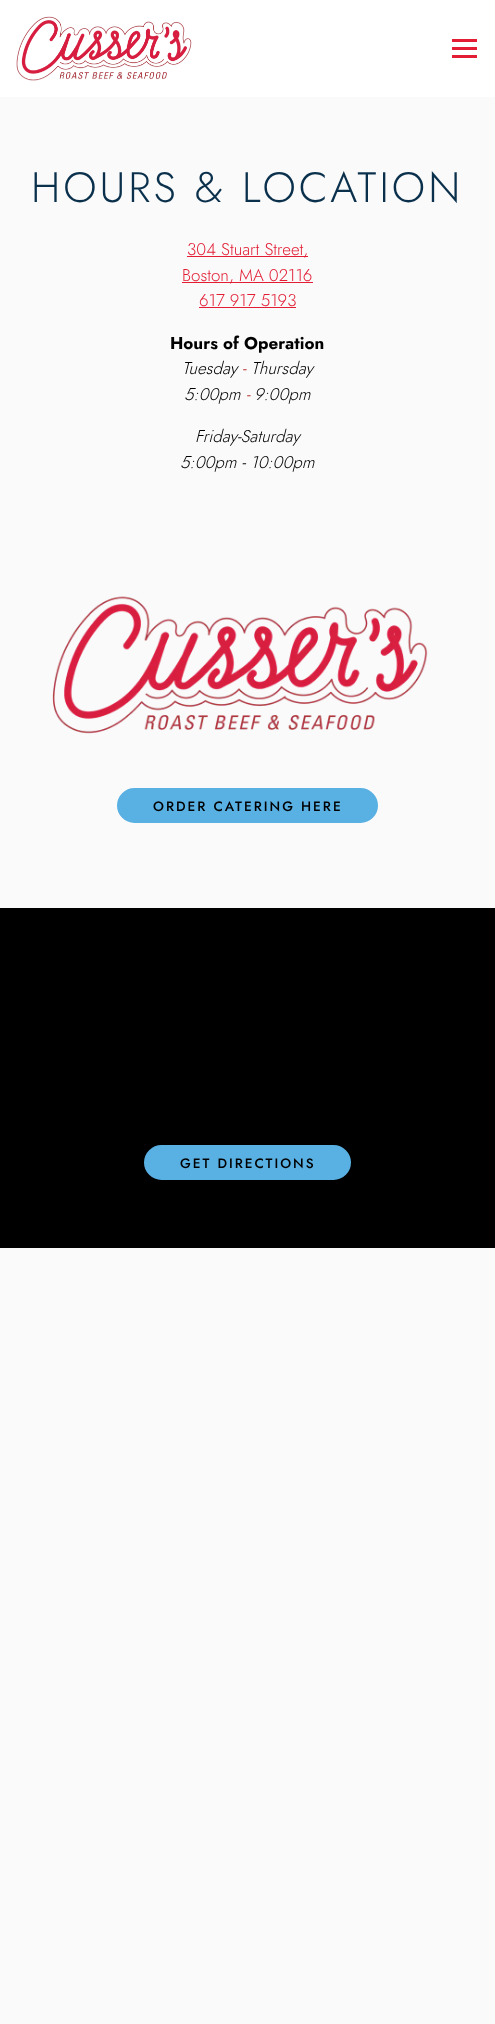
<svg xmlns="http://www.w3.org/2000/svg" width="495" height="2024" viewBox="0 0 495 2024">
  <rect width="100%" height="100%" fill="#fafafa"/>
  <rect x="0" y="0" width="495" height="97" fill="#ffffff"/>
  <image x="16" y="16" width="176" height="65" href="img1.png"/>
  <rect x="452" y="39" width="25" height="3" fill="#e21d34"/>
  <rect x="452" y="47" width="25" height="3" fill="#e21d34"/>
  <rect x="452" y="55" width="25" height="3" fill="#e21d34"/>
  <text x="31" y="202" font-family="Jost" font-size="42.5" font-weight="300" letter-spacing="3" fill="#0a304c">HOURS &amp; LOCATION</text>
  <rect x="187" y="256" width="121" height="1" fill="#e21d34"/>
  <text x="187" y="255" font-family="Jost" font-size="17" font-weight="300" fill="#e21d34">304 Stuart Street,</text>
  <rect x="182" y="282" width="131" height="1" fill="#e21d34"/>
  <text x="182" y="281" font-family="Jost" font-size="17" font-weight="300" fill="#e21d34">Boston, MA 02116</text>
  <text x="199" y="306" font-family="Jost" font-size="17" font-weight="300" fill="#e21d34">617 917 5193</text>
  <rect x="199" y="307" width="97" height="1" fill="#e21d34"/>
  <text x="170" y="349" font-family="Jost" font-size="17" font-weight="bold" fill="#000000">Hours of Operation</text>
  <text x="182" y="374" font-family="Jost" font-size="17" font-weight="300" font-style="italic" fill="#000000">Tuesday</text>
  <text x="242" y="374" font-family="Jost" font-size="17" font-weight="300" font-style="italic" fill="#b8312f">-</text>
  <text x="251" y="374" font-family="Jost" font-size="17" font-weight="300" font-style="italic" fill="#000000">Thursday</text>
  <text x="184" y="400" font-family="Jost" font-size="17" font-weight="300" font-style="italic" fill="#000000">5:00pm</text>
  <text x="246" y="400" font-family="Jost" font-size="17" font-weight="300" font-style="italic" fill="#b8312f">-</text>
  <text x="254" y="400" font-family="Jost" font-size="17" font-weight="300" font-style="italic" fill="#000000">9:00pm</text>
  <text x="195" y="442" font-family="Jost" font-size="17" font-weight="300" font-style="italic" fill="#000000">Friday-Saturday</text>
  <text x="180" y="468" font-family="Jost" font-size="17" font-weight="300" font-style="italic" fill="#000000">5:00pm - 10:00pm</text>
  <image x="52" y="596" width="376" height="138" href="img2.png"/>
  <rect x="118" y="789" width="259" height="33" rx="16.5" fill="#59b0e3" stroke="#59b0e3" stroke-width="2"/>
  <text x="153" y="811" font-family="Jost" font-size="13.6" font-weight="500" letter-spacing="2" fill="#000000">ORDER CATERING HERE</text>
  <rect x="0" y="908" width="495" height="340" fill="#000000"/>
  <rect x="145" y="1146" width="205" height="33" rx="16.5" fill="#59b0e3" stroke="#59b0e3" stroke-width="2"/>
  <text x="180" y="1168" font-family="Jost" font-size="13.6" font-weight="500" letter-spacing="2" fill="#000000">GET DIRECTIONS</text>
</svg>
